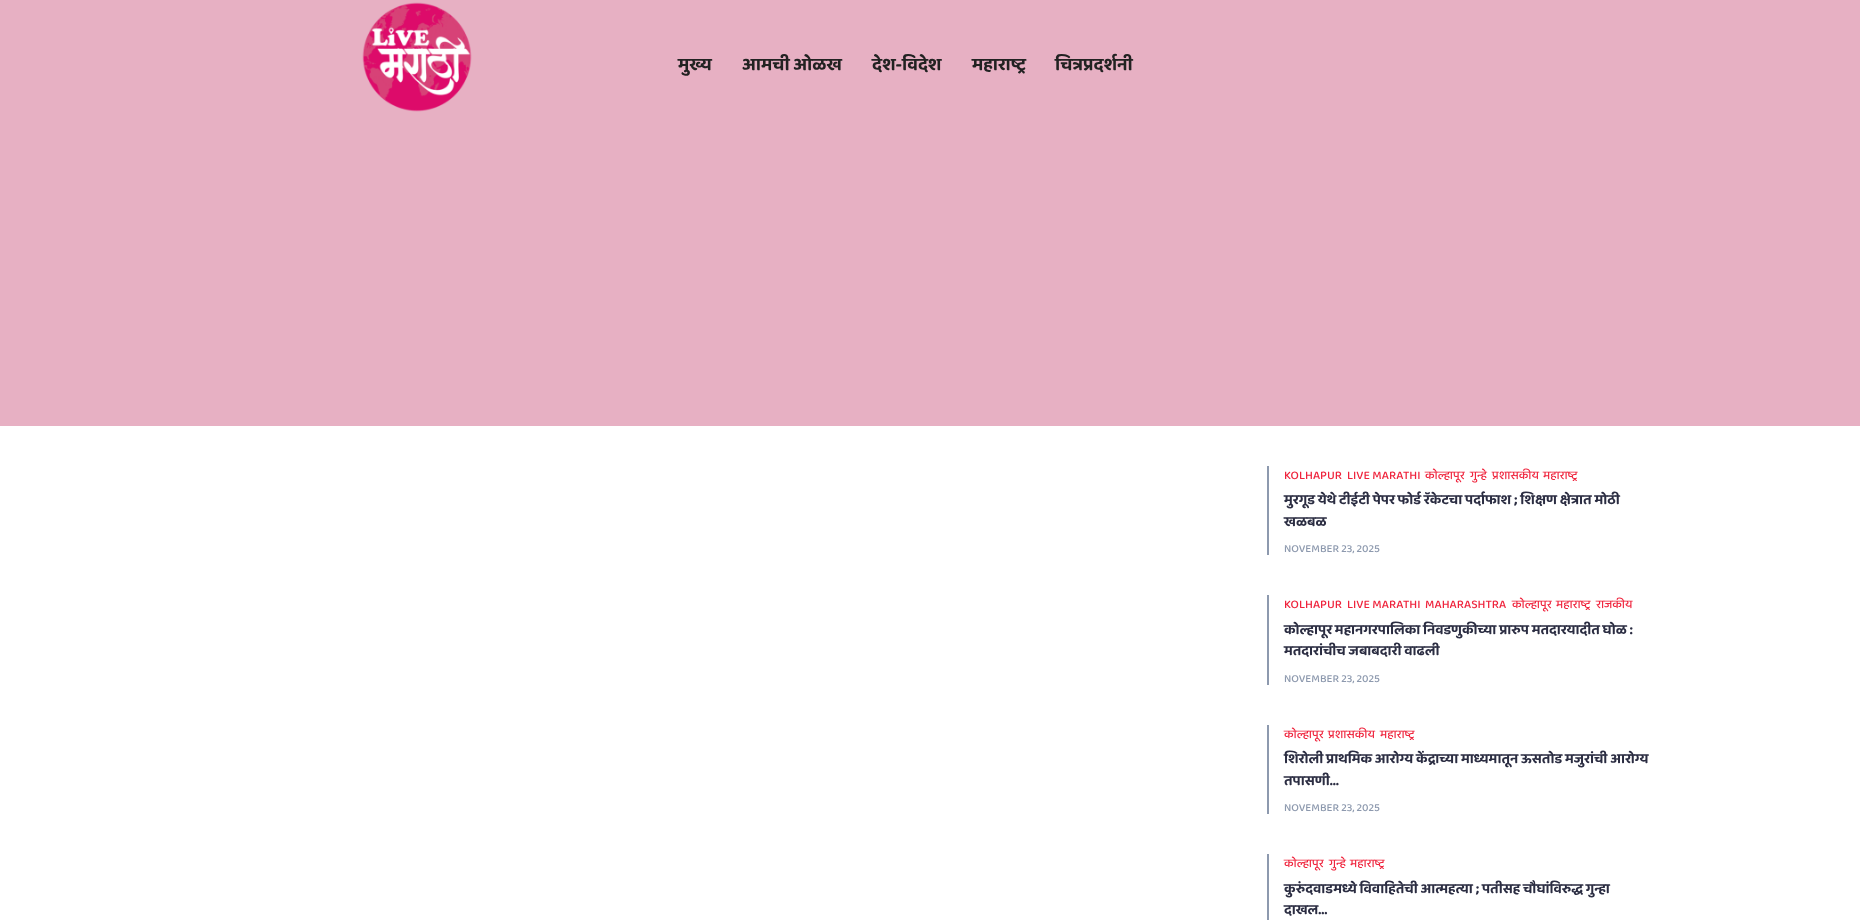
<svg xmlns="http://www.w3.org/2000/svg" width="1860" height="920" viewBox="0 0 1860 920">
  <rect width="100%" height="100%" fill="#ffffff"/>
  <rect x="0" y="0" width="1860" height="426" fill="#e7b0c3"/>
  <image x="362" y="2" width="110" height="110" href="img1.png"/>
  <text x="678" y="70" font-family="'Baloo 2'" font-size="18" font-weight="bold" fill="#222222">मुख्य</text>
  <text x="742" y="70" font-family="'Baloo 2'" font-size="18" font-weight="bold" fill="#222222">आमची ओळख</text>
  <text x="872" y="70" font-family="'Baloo 2'" font-size="18" font-weight="bold" fill="#222222">देश-विदेश</text>
  <text x="972" y="70" font-family="'Baloo 2'" font-size="18" font-weight="bold" fill="#222222">महाराष्ट्र</text>
  <text x="1055" y="70" font-family="'Baloo 2'" font-size="18" font-weight="bold" fill="#222222">चित्रप्रदर्शनी</text>
  <rect x="1267" y="466" width="2" height="89" fill="#8d99ae"/>
  <text x="1284" y="479" font-family="'Baloo 2'" font-size="12" font-weight="500" fill="#ef233c">KOLHAPUR</text>
  <text x="1347" y="479" font-family="'Baloo 2'" font-size="12" font-weight="500" fill="#ef233c">LIVE MARATHI</text>
  <text x="1425" y="479" font-family="'Baloo 2'" font-size="12" font-weight="500" fill="#ef233c">कोल्हापूर</text>
  <text x="1470" y="479" font-family="'Baloo 2'" font-size="12" font-weight="500" fill="#ef233c">गुन्हे</text>
  <text x="1492" y="479" font-family="'Baloo 2'" font-size="12" font-weight="500" fill="#ef233c">प्रशासकीय</text>
  <text x="1543" y="479" font-family="'Baloo 2'" font-size="12" font-weight="500" fill="#ef233c">महाराष्ट्र</text>
  <text x="1284" y="504" font-family="'Baloo 2'" font-size="14" font-weight="bold" fill="#2b2d42">मुरगूड येथे टीईटी पेपर फोर्ड रॅकेटचा पर्दाफाश ; शिक्षण क्षेत्रात मोठी</text>
  <text x="1284" y="526" font-family="'Baloo 2'" font-size="14" font-weight="bold" fill="#2b2d42">खळबळ</text>
  <text x="1284" y="552" font-family="'Baloo 2'" font-size="11" font-weight="500" fill="#8d99ae">NOVEMBER 23, 2025</text>
  <rect x="1267" y="595" width="2" height="90" fill="#8d99ae"/>
  <text x="1284" y="608" font-family="'Baloo 2'" font-size="12" font-weight="500" fill="#ef233c">KOLHAPUR</text>
  <text x="1347" y="608" font-family="'Baloo 2'" font-size="12" font-weight="500" fill="#ef233c">LIVE MARATHI</text>
  <text x="1425" y="608" font-family="'Baloo 2'" font-size="12" font-weight="500" fill="#ef233c">MAHARASHTRA</text>
  <text x="1512" y="608" font-family="'Baloo 2'" font-size="12" font-weight="500" fill="#ef233c">कोल्हापूर</text>
  <text x="1556" y="608" font-family="'Baloo 2'" font-size="12" font-weight="500" fill="#ef233c">महाराष्ट्र</text>
  <text x="1596" y="608" font-family="'Baloo 2'" font-size="12" font-weight="500" fill="#ef233c">राजकीय</text>
  <text x="1284" y="634" font-family="'Baloo 2'" font-size="14" font-weight="bold" fill="#2b2d42">कोल्हापूर महानगरपालिका निवडणुकीच्या प्रारुप मतदारयादीत घोळ :</text>
  <text x="1284" y="655" font-family="'Baloo 2'" font-size="14" font-weight="bold" fill="#2b2d42">मतदारांचीच जबाबदारी वाढली</text>
  <text x="1284" y="682" font-family="'Baloo 2'" font-size="11" font-weight="500" fill="#8d99ae">NOVEMBER 23, 2025</text>
  <rect x="1267" y="725" width="2" height="89" fill="#8d99ae"/>
  <text x="1284" y="738" font-family="'Baloo 2'" font-size="12" font-weight="500" fill="#ef233c">कोल्हापूर</text>
  <text x="1328" y="738" font-family="'Baloo 2'" font-size="12" font-weight="500" fill="#ef233c">प्रशासकीय</text>
  <text x="1380" y="738" font-family="'Baloo 2'" font-size="12" font-weight="500" fill="#ef233c">महाराष्ट्र</text>
  <text x="1284" y="763" font-family="'Baloo 2'" font-size="14" font-weight="bold" fill="#2b2d42">शिरोली प्राथमिक आरोग्य केंद्राच्या माध्यमातून ऊसतोड मजुरांची आरोग्य</text>
  <text x="1284" y="785" font-family="'Baloo 2'" font-size="14" font-weight="bold" fill="#2b2d42">तपासणी…</text>
  <text x="1284" y="811" font-family="'Baloo 2'" font-size="11" font-weight="500" fill="#8d99ae">NOVEMBER 23, 2025</text>
  <rect x="1267" y="854" width="2" height="66" fill="#8d99ae"/>
  <text x="1284" y="867" font-family="'Baloo 2'" font-size="12" font-weight="500" fill="#ef233c">कोल्हापूर</text>
  <text x="1329" y="867" font-family="'Baloo 2'" font-size="12" font-weight="500" fill="#ef233c">गुन्हे</text>
  <text x="1350" y="867" font-family="'Baloo 2'" font-size="12" font-weight="500" fill="#ef233c">महाराष्ट्र</text>
  <text x="1284" y="893" font-family="'Baloo 2'" font-size="14" font-weight="bold" fill="#2b2d42">कुरुंदवाडमध्ये विवाहितेची आत्महत्या ; पतीसह चौघांविरुद्ध गुन्हा</text>
  <text x="1284" y="914" font-family="'Baloo 2'" font-size="14" font-weight="bold" fill="#2b2d42">दाखल…</text>
</svg>
